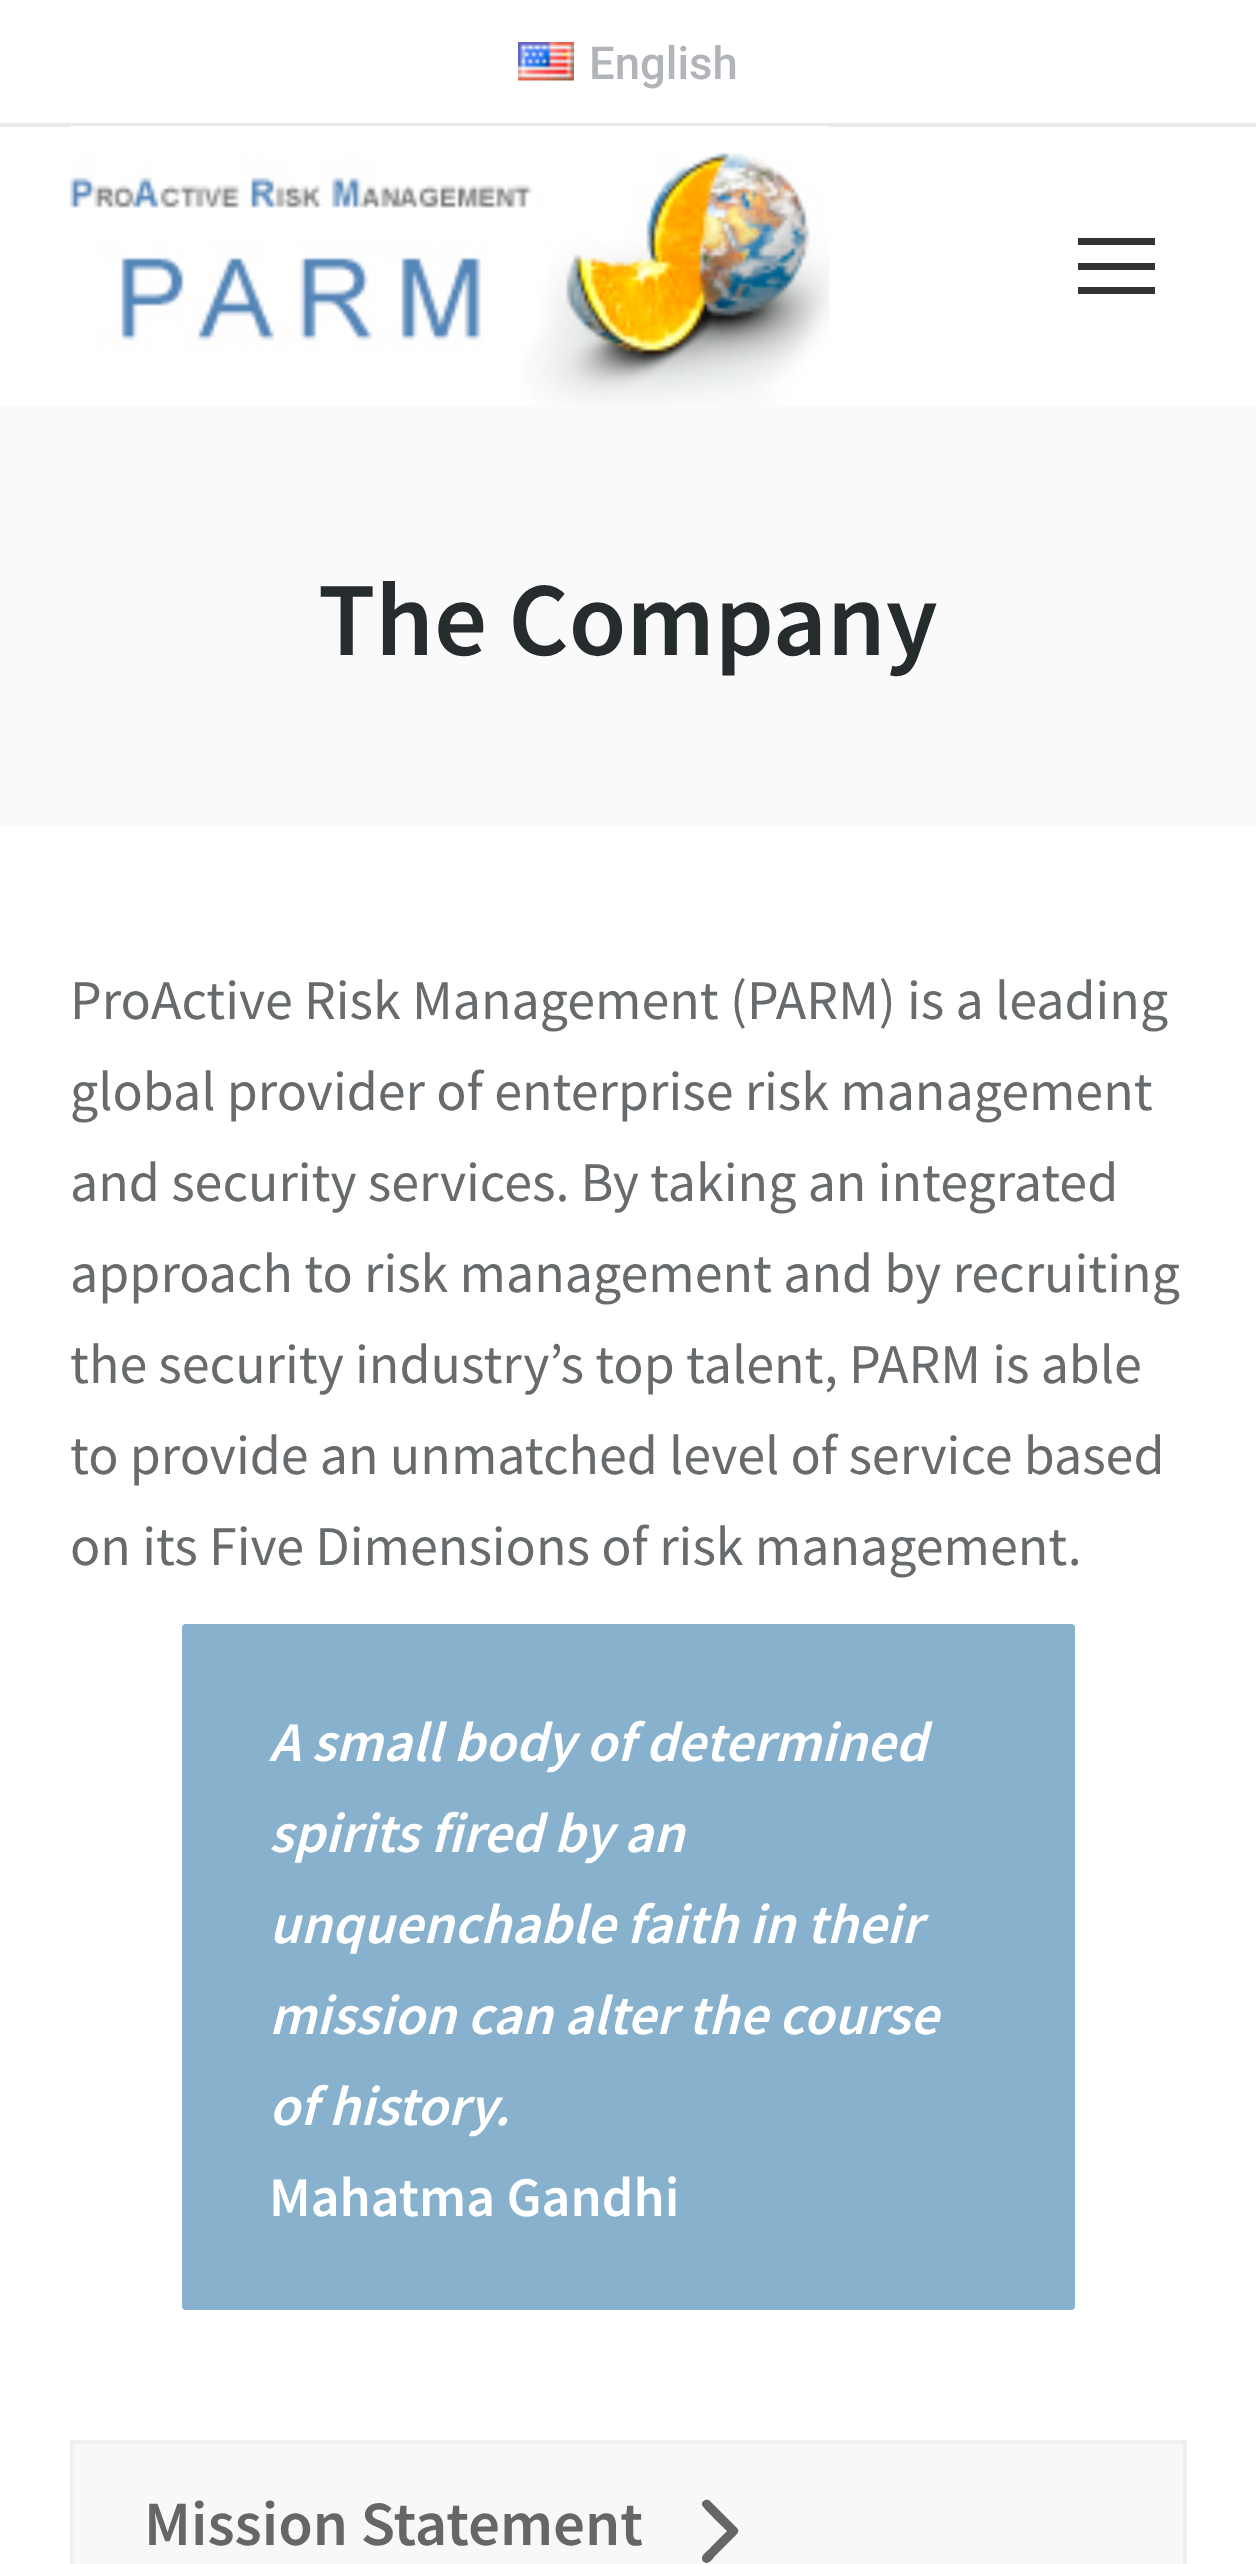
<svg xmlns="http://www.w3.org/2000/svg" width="1256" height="2564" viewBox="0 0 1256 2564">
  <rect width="100%" height="100%" fill="#ffffff"/>
  <image x="518" y="42" width="56" height="39" href="img1.png"/>
  <text x="589" y="79" font-family="Roboto" font-size="45.5" font-weight="500" fill="#b1b4b8">English</text>
  <rect x="0" y="123" width="1256" height="4" fill="#e9e9e9"/>
  <image x="70" y="126" width="760" height="280" href="img2.png"/>
  <rect x="1078" y="238" width="77" height="7" fill="#333333"/>
  <rect x="1078" y="263" width="77" height="7" fill="#333333"/>
  <rect x="1078" y="287" width="77" height="7" fill="#333333"/>
  <rect x="0" y="406" width="1256" height="420" fill="#fafafb"/>
  <text x="318" y="655" font-family="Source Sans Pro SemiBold" font-size="105" font-weight="600" fill="#262b2e">The Company</text>
  <text x="70" y="1019" font-family="Source Sans Pro" font-size="56" fill="#676b6d">ProActive Risk Management (PARM) is a leading</text>
  <text x="70" y="1110" font-family="Source Sans Pro" font-size="56" fill="#676b6d">global provider of enterprise risk management</text>
  <text x="70" y="1201" font-family="Source Sans Pro" font-size="56" fill="#676b6d">and security services. By taking an integrated</text>
  <text x="70" y="1292" font-family="Source Sans Pro" font-size="56" fill="#676b6d">approach to risk management and by recruiting</text>
  <text x="70" y="1383" font-family="Source Sans Pro" font-size="56" fill="#676b6d">the security industry’s top talent, PARM is able</text>
  <text x="70" y="1474" font-family="Source Sans Pro" font-size="56" fill="#676b6d">to provide an unmatched level of service based</text>
  <text x="70" y="1565" font-family="Source Sans Pro" font-size="56" fill="#676b6d">on its Five Dimensions of risk management.</text>
  <rect x="182" y="1624" width="893" height="686" rx="4" fill="#87b1cc"/>
  <text x="269" y="1761" font-family="Source Sans Pro SemiBold" font-size="56" font-weight="600" font-style="italic" fill="#ffffff">A small body of determined</text>
  <text x="269" y="1852" font-family="Source Sans Pro SemiBold" font-size="56" font-weight="600" font-style="italic" fill="#ffffff">spirits fired by an</text>
  <text x="269" y="1943" font-family="Source Sans Pro SemiBold" font-size="56" font-weight="600" font-style="italic" fill="#ffffff">unquenchable faith in their</text>
  <text x="269" y="2034" font-family="Source Sans Pro SemiBold" font-size="56" font-weight="600" font-style="italic" fill="#ffffff">mission can alter the course</text>
  <text x="269" y="2125" font-family="Source Sans Pro SemiBold" font-size="56" font-weight="600" font-style="italic" fill="#ffffff">of history.</text>
  <text x="269" y="2216" font-family="Source Sans Pro SemiBold" font-size="56" font-weight="600" fill="#ffffff">Mahatma Gandhi</text>
  <rect x="72" y="2442" width="1113" height="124" fill="#f8f8f8" stroke="#f0f0f0" stroke-width="4"/>
  <text x="144" y="2545" font-family="Source Sans Pro SemiBold" font-size="63" font-weight="600" fill="#666666">Mission Statement</text>
  <path d="M737 2528C741 2532 735 2536 732 2539L714 2557C712 2560 708 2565 704 2562C702 2561 702 2560 702 2558C702 2554 709 2550 711 2547L727 2531C724 2528 703 2508 702 2505C701 2501 707 2498 710 2501Z" fill="#666666"/>
</svg>
